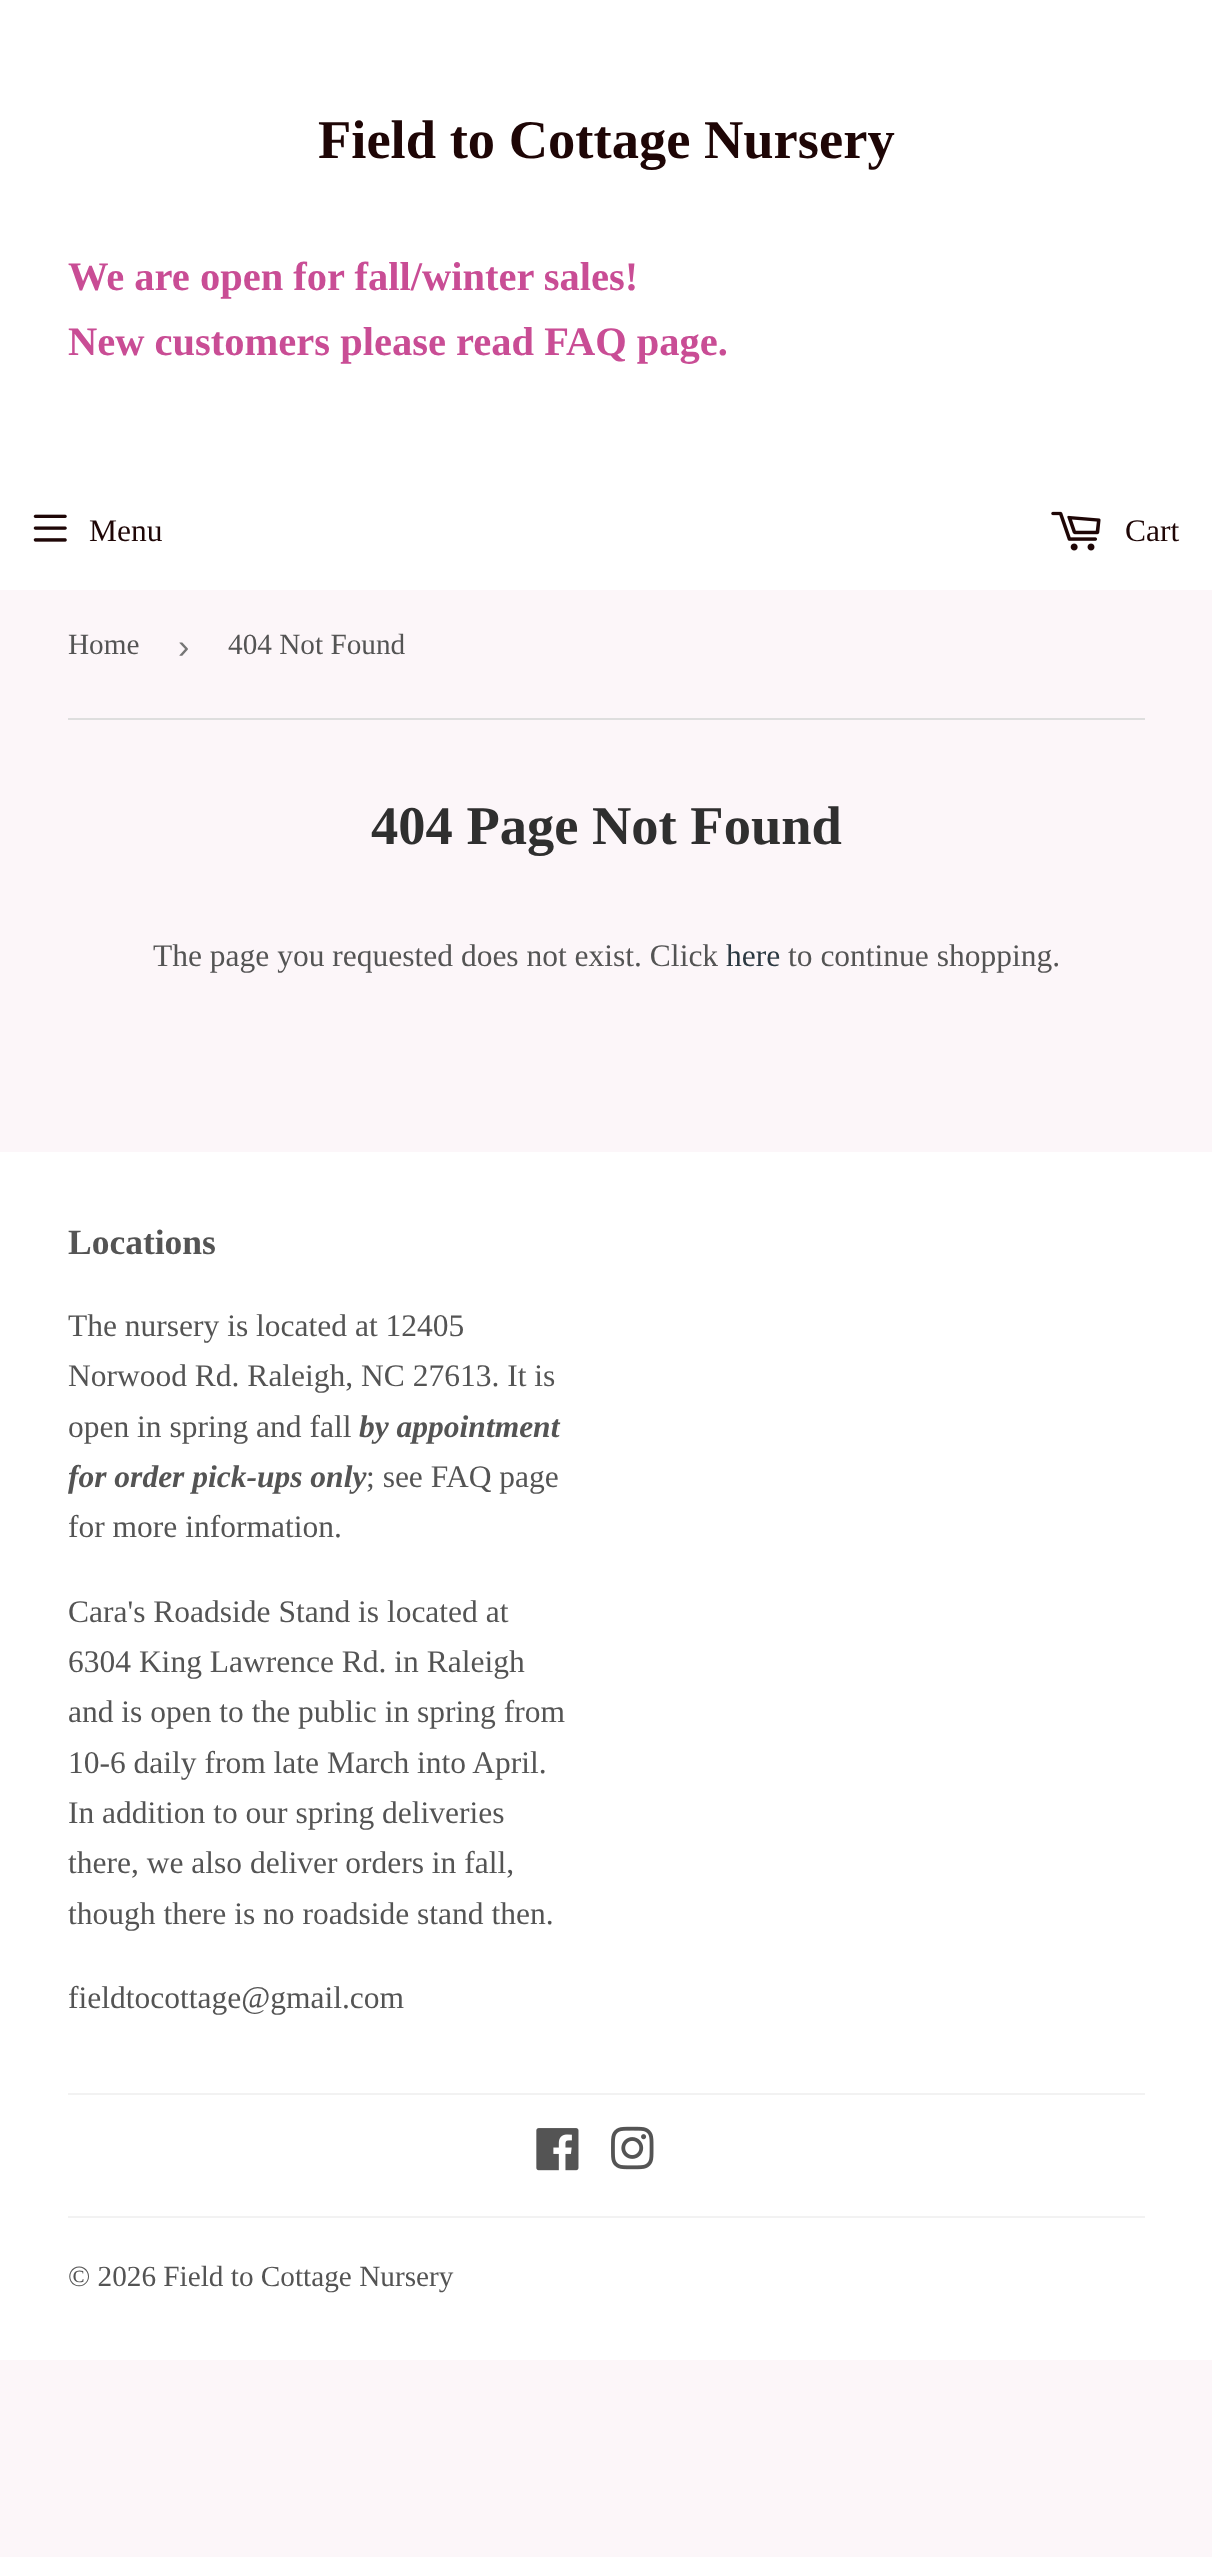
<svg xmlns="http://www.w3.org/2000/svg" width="1212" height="2557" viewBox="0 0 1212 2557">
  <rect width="100%" height="100%" fill="#fcf6f9"/>
  <rect x="0" y="0" width="1212" height="590" fill="#ffffff"/>
  <text x="318" y="158" font-family="Liberation Serif" font-size="54.5" font-weight="bold" fill="#1e0606">Field to Cottage Nursery</text>
  <text x="68" y="290" font-family="Liberation Serif" font-size="40.5" font-weight="bold" fill="#c94d95">We are open for fall/winter sales!</text>
  <text x="68" y="355" font-family="Liberation Serif" font-size="40.5" font-weight="bold" fill="#c94d95">New customers please read FAQ page.</text>
  <image x="33" y="514" width="34" height="28" href="img1.png"/>
  <text x="89" y="541" font-family="Liberation Serif" font-size="31.5" fill="#1e0606">Menu</text>
  <image x="1051" y="511" width="50" height="40" href="img2.png"/>
  <text x="1125" y="541" font-family="Liberation Serif" font-size="31.5" fill="#1e0606">Cart</text>
  <rect x="68" y="718" width="1077" height="2" fill="#dedede"/>
  <text x="68" y="654" font-family="Liberation Serif" font-size="29.25" fill="#545454">Home</text>
  <text x="178" y="658" font-family="Liberation Sans" font-size="34" fill="#767676">›</text>
  <text x="228" y="654" font-family="Liberation Serif" font-size="29.25" fill="#545454">404 Not Found</text>
  <text x="371" y="844" font-family="Liberation Serif" font-size="54.5" font-weight="bold" fill="#2f2f2f">404 Page Not Found</text>
  <text x="153" y="966" font-family="Liberation Serif" font-size="31.5" fill="#545454">The page you requested does not exist. Click</text>
  <text x="726" y="966" font-family="Liberation Serif" font-size="31.5" fill="#2b3841">here</text>
  <text x="788" y="966" font-family="Liberation Serif" font-size="31.5" fill="#545454">to continue shopping.</text>
  <rect x="0" y="1152" width="1212" height="1208" fill="#ffffff"/>
  <text x="68" y="1254" font-family="Liberation Serif" font-size="35.5" font-weight="bold" fill="#545454">Locations</text>
  <text x="68" y="1336" font-family="Liberation Serif" font-size="31.5" fill="#545454">The nursery is located at 12405</text>
  <text x="68" y="1386" font-family="Liberation Serif" font-size="31.5" fill="#545454">Norwood Rd. Raleigh, NC 27613. It is</text>
  <text x="68" y="1437" font-family="Liberation Serif" font-size="31.5" fill="#545454">open in spring and fall</text>
  <text x="359" y="1437" font-family="Liberation Serif" font-size="31.5" font-weight="bold" font-style="italic" fill="#545454">by appointment</text>
  <text x="68" y="1487" font-family="Liberation Serif" font-size="31.5" font-weight="bold" font-style="italic" fill="#545454">for order pick-ups only</text>
  <text x="366" y="1487" font-family="Liberation Serif" font-size="31.5" fill="#545454">; see FAQ page</text>
  <text x="68" y="1537" font-family="Liberation Serif" font-size="31.5" fill="#545454">for more information.</text>
  <text x="68" y="1622" font-family="Liberation Serif" font-size="31.5" fill="#545454">Cara's Roadside Stand is located at</text>
  <text x="68" y="1672" font-family="Liberation Serif" font-size="31.5" fill="#545454">6304 King Lawrence Rd. in Raleigh</text>
  <text x="68" y="1722" font-family="Liberation Serif" font-size="31.5" fill="#545454">and is open to the public in spring from</text>
  <text x="68" y="1773" font-family="Liberation Serif" font-size="31.5" fill="#545454">10-6 daily from late March into April.</text>
  <text x="68" y="1823" font-family="Liberation Serif" font-size="31.5" fill="#545454">In addition to our spring deliveries</text>
  <text x="68" y="1873" font-family="Liberation Serif" font-size="31.5" fill="#545454">there, we also deliver orders in fall,</text>
  <text x="68" y="1924" font-family="Liberation Serif" font-size="31.5" fill="#545454">though there is no roadside stand then.</text>
  <text x="68" y="2008" font-family="Liberation Serif" font-size="31.5" fill="#545454">fieldtocottage@gmail.com</text>
  <rect x="68" y="2093" width="1077" height="2" fill="#f2f2f2"/>
  <image x="536" y="2128" width="43" height="43" href="img3.png"/>
  <image x="611" y="2126" width="43" height="44" href="img4.png"/>
  <rect x="68" y="2216" width="1077" height="2" fill="#f2f2f2"/>
  <text x="68" y="2286" font-family="Liberation Serif" font-size="29.25" fill="#545454">© 2026 Field to Cottage Nursery</text>
</svg>
